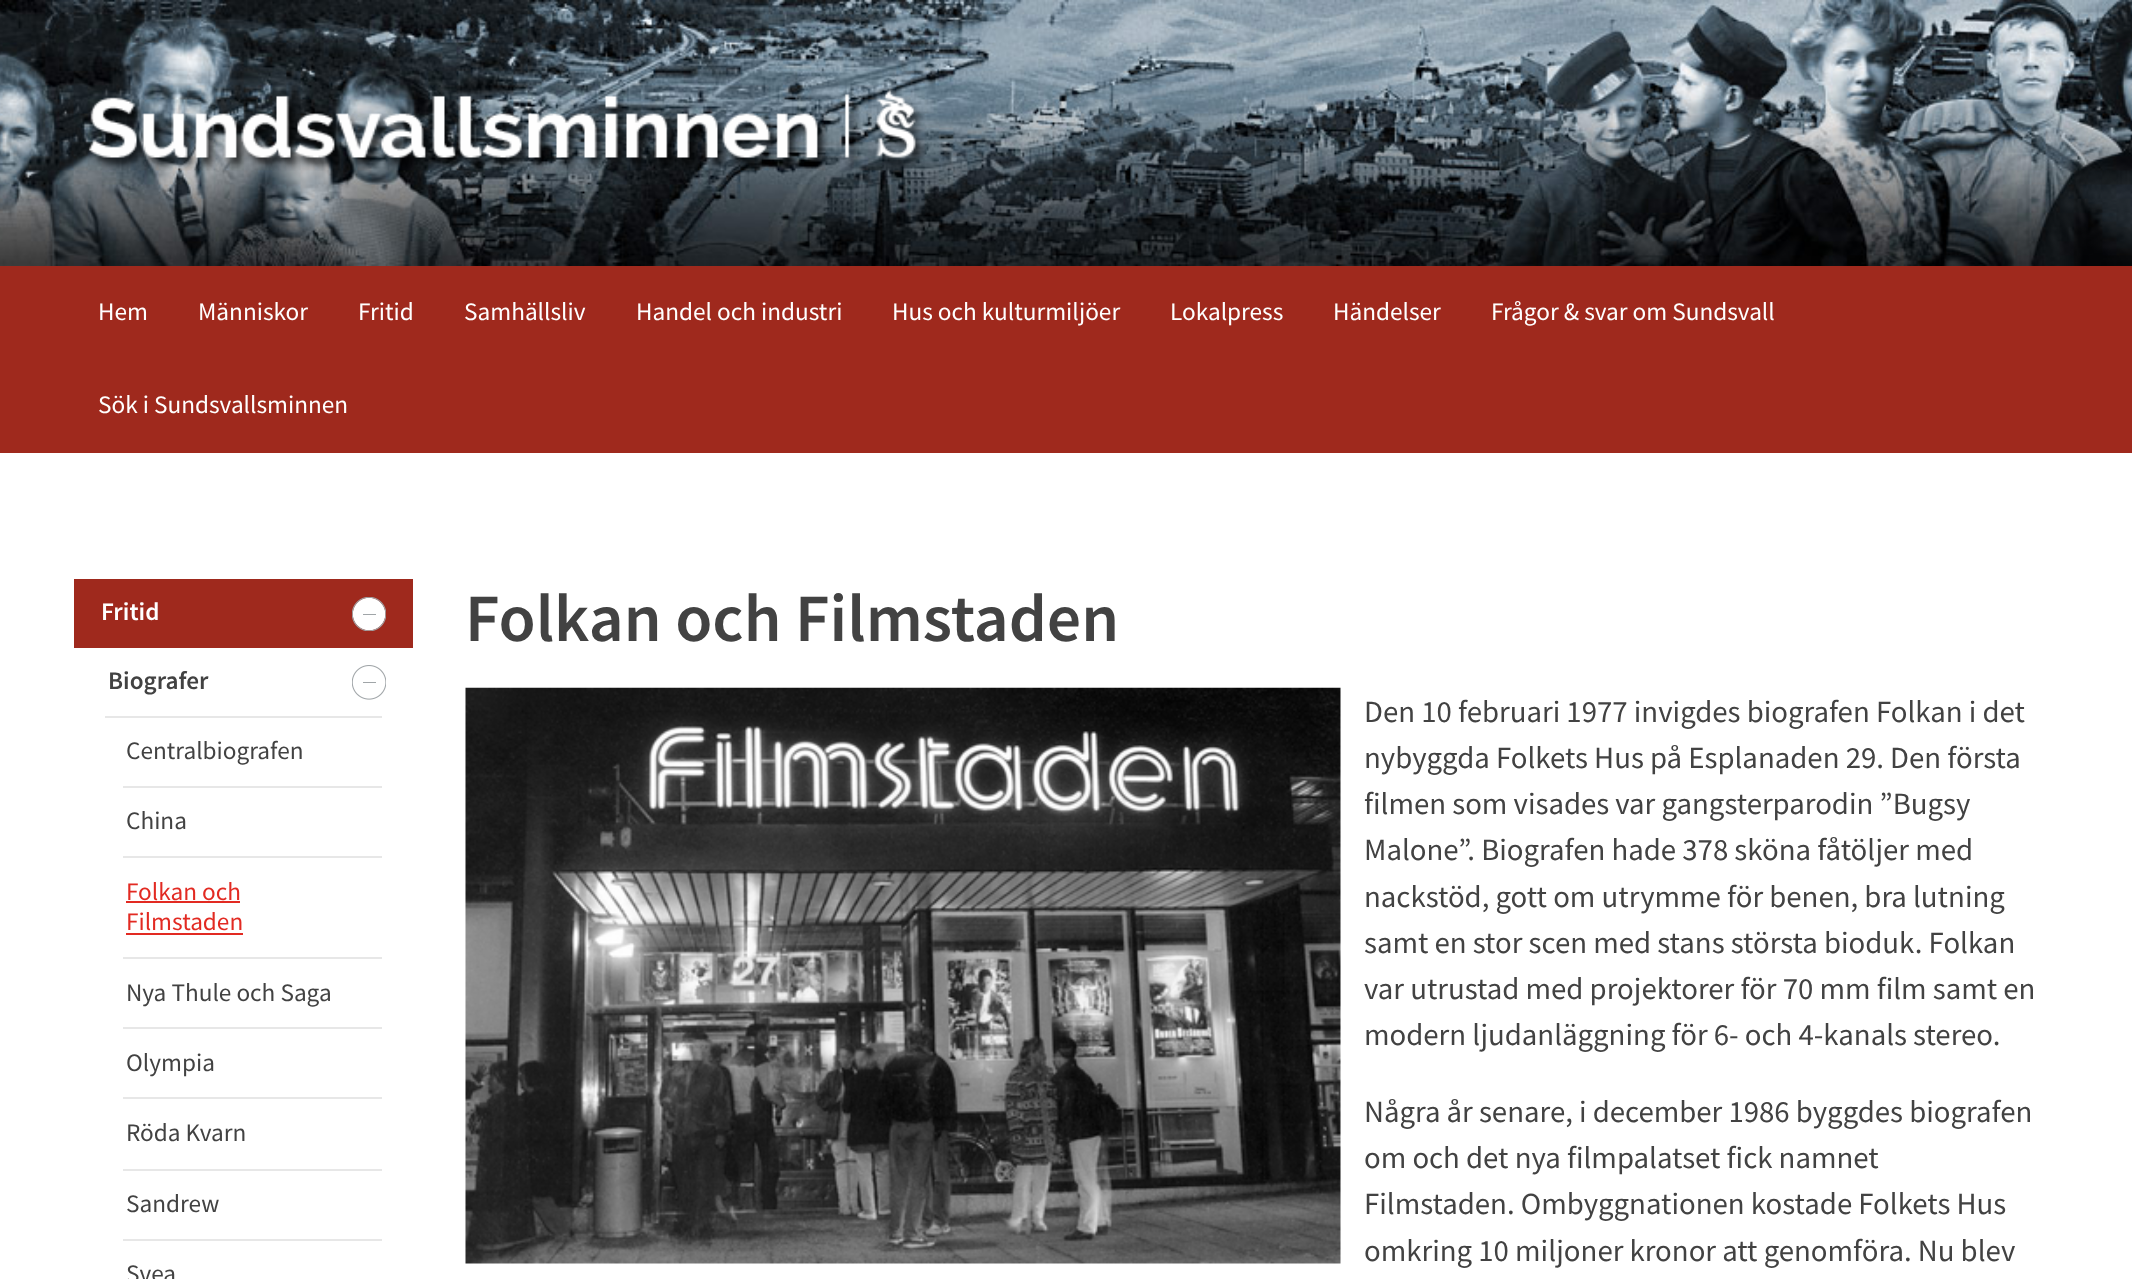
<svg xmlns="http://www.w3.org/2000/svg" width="2132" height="1279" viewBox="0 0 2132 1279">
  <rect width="100%" height="100%" fill="#ffffff"/>
  <image x="0" y="0" width="2132" height="266" href="img1.png"/>
  <image x="88" y="87" width="838" height="84" href="img2.png"/>
  <rect x="0" y="266" width="2132" height="187" fill="#9f291d"/>
  <text x="98" y="320" font-family="Source Sans Pro" font-size="25.25" fill="#ffffff">Hem</text>
  <text x="198" y="320" font-family="Source Sans Pro" font-size="25.25" fill="#ffffff">Människor</text>
  <text x="358" y="320" font-family="Source Sans Pro" font-size="25.25" fill="#ffffff">Fritid</text>
  <text x="464" y="320" font-family="Source Sans Pro" font-size="25.25" fill="#ffffff">Samhällsliv</text>
  <text x="636" y="320" font-family="Source Sans Pro" font-size="25.25" fill="#ffffff">Handel och industri</text>
  <text x="892" y="320" font-family="Source Sans Pro" font-size="25.25" fill="#ffffff">Hus och kulturmiljöer</text>
  <text x="1170" y="320" font-family="Source Sans Pro" font-size="25.25" fill="#ffffff">Lokalpress</text>
  <text x="1333" y="320" font-family="Source Sans Pro" font-size="25.25" fill="#ffffff">Händelser</text>
  <text x="1491" y="320" font-family="Source Sans Pro" font-size="25.25" fill="#ffffff">Frågor &amp; svar om Sundsvall</text>
  <text x="98" y="413" font-family="Source Sans Pro" font-size="25.25" fill="#ffffff">Sök i Sundsvallsminnen</text>
  <rect x="74" y="579" width="339" height="69" fill="#9f291d"/>
  <text x="101" y="620" font-family="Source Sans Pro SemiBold" font-size="25.25" font-weight="600" fill="#ffffff">Fritid</text>
  <image x="352" y="597" width="34" height="34" href="img3.png"/>
  <rect x="105" y="716" width="277" height="2" fill="#e7e7e7"/>
  <text x="108" y="689" font-family="Source Sans Pro SemiBold" font-size="25.25" font-weight="600" fill="#424242">Biografer</text>
  <image x="352" y="665" width="34" height="35" href="img4.png"/>
  <rect x="123" y="786" width="259" height="2" fill="#e7e7e7"/>
  <text x="126" y="759" font-family="Source Sans Pro" font-size="25.25" fill="#424242">Centralbiografen</text>
  <rect x="123" y="856" width="259" height="2" fill="#e7e7e7"/>
  <text x="126" y="829" font-family="Source Sans Pro" font-size="25.25" fill="#424242">China</text>
  <rect x="123" y="957" width="259" height="2" fill="#e7e7e7"/>
  <text x="126" y="900" font-family="Source Sans Pro" font-size="25.25" fill="#e22a22">Folkan och</text>
  <rect x="126" y="901" width="114" height="2" fill="#e22a22"/>
  <text x="126" y="930" font-family="Source Sans Pro" font-size="25.25" fill="#e22a22">Filmstaden</text>
  <rect x="126" y="933" width="117" height="2" fill="#e22a22"/>
  <rect x="123" y="1027" width="259" height="2" fill="#e7e7e7"/>
  <text x="126" y="1001" font-family="Source Sans Pro" font-size="25.25" fill="#424242">Nya Thule och Saga</text>
  <rect x="123" y="1097" width="259" height="2" fill="#e7e7e7"/>
  <text x="126" y="1071" font-family="Source Sans Pro" font-size="25.25" fill="#424242">Olympia</text>
  <rect x="123" y="1169" width="259" height="2" fill="#e7e7e7"/>
  <text x="126" y="1141" font-family="Source Sans Pro" font-size="25.25" fill="#424242">Röda Kvarn</text>
  <rect x="123" y="1239" width="259" height="2" fill="#e7e7e7"/>
  <text x="126" y="1212" font-family="Source Sans Pro" font-size="25.25" fill="#424242">Sandrew</text>
  <text x="126" y="1282" font-family="Source Sans Pro" font-size="25.25" fill="#424242">Svea</text>
  <text x="465" y="641" font-family="Source Sans Pro SemiBold" font-size="67.75" font-weight="600" fill="#424242">Folkan och Filmstaden</text>
  <image x="465" y="687" width="876" height="577" href="img5.png"/>
  <text x="1364" y="722" font-family="Source Sans Pro" font-size="30.8" fill="#424242">Den 10 februari 1977 invigdes biografen Folkan i det</text>
  <text x="1364" y="768" font-family="Source Sans Pro" font-size="30.8" fill="#424242">nybyggda Folkets Hus på Esplanaden 29. Den första</text>
  <text x="1364" y="814" font-family="Source Sans Pro" font-size="30.8" fill="#424242">filmen som visades var gangsterparodin ”Bugsy</text>
  <text x="1364" y="860" font-family="Source Sans Pro" font-size="30.8" fill="#424242">Malone”. Biografen hade 378 sköna fåtöljer med</text>
  <text x="1364" y="907" font-family="Source Sans Pro" font-size="30.8" fill="#424242">nackstöd, gott om utrymme för benen, bra lutning</text>
  <text x="1364" y="953" font-family="Source Sans Pro" font-size="30.8" fill="#424242">samt en stor scen med stans största bioduk. Folkan</text>
  <text x="1364" y="999" font-family="Source Sans Pro" font-size="30.8" fill="#424242">var utrustad med projektorer för 70 mm film samt en</text>
  <text x="1364" y="1045" font-family="Source Sans Pro" font-size="30.8" fill="#424242">modern ljudanläggning för 6- och 4-kanals stereo.</text>
  <text x="1364" y="1122" font-family="Source Sans Pro" font-size="30.8" fill="#424242">Några år senare, i december 1986 byggdes biografen</text>
  <text x="1364" y="1168" font-family="Source Sans Pro" font-size="30.8" fill="#424242">om och det nya filmpalatset fick namnet</text>
  <text x="1364" y="1214" font-family="Source Sans Pro" font-size="30.8" fill="#424242">Filmstaden. Ombyggnationen kostade Folkets Hus</text>
  <text x="1364" y="1261" font-family="Source Sans Pro" font-size="30.8" fill="#424242">omkring 10 miljoner kronor att genomföra. Nu blev</text>
</svg>
